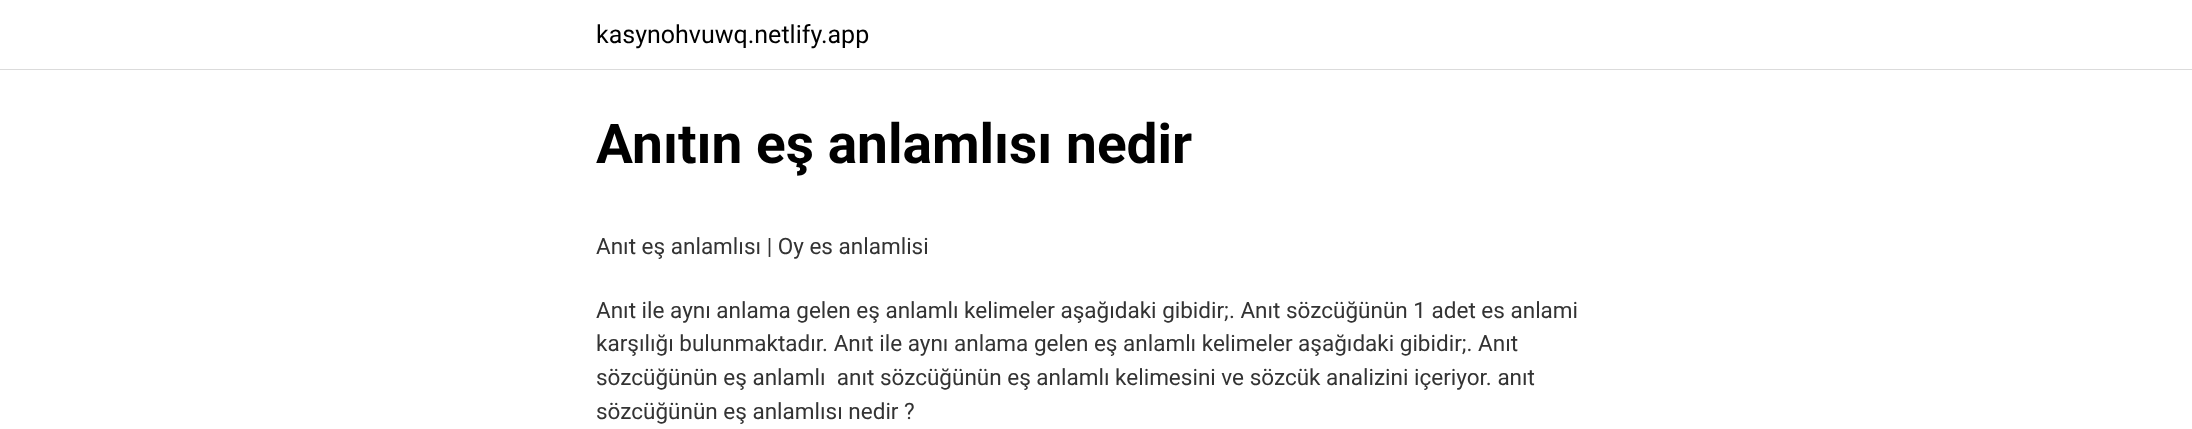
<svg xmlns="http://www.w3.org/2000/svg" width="2192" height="429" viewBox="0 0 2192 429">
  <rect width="100%" height="100%" fill="#ffffff"/>
  <rect x="0" y="69" width="2192" height="1" fill="#dbdbdb"/>
  <text x="596" y="43" font-family="Roboto" font-size="25" fill="#000000">kasynohvuwq.netlify.app</text>
  <text x="596" y="163" font-family="Roboto" font-size="55" font-weight="bold" fill="#000000">Anıtın eş anlamlısı nedir</text>
  <text x="596" y="254" font-family="Roboto" font-size="22.5" fill="#333333">Anıt eş anlamlısı | Oy es anlamlisi</text>
  <text x="596" y="318" font-family="Roboto" font-size="22.5" fill="#333333">Anıt ile aynı anlama gelen eş anlamlı kelimeler aşağıdaki gibidir;. Anıt sözcüğünün 1 adet es anlami</text>
  <text x="596" y="351" font-family="Roboto" font-size="22.5" fill="#333333">karşılığı bulunmaktadır. Anıt ile aynı anlama gelen eş anlamlı kelimeler aşağıdaki gibidir;. Anıt</text>
  <text x="596" y="385" font-family="Roboto" font-size="22.5" fill="#333333" xml:space="preserve">sözcüğünün eş anlamlı  anıt sözcüğünün eş anlamlı kelimesini ve sözcük analizini içeriyor. anıt</text>
  <text x="596" y="419" font-family="Roboto" font-size="22.5" fill="#333333">sözcüğünün eş anlamlısı nedir ?</text>
</svg>
